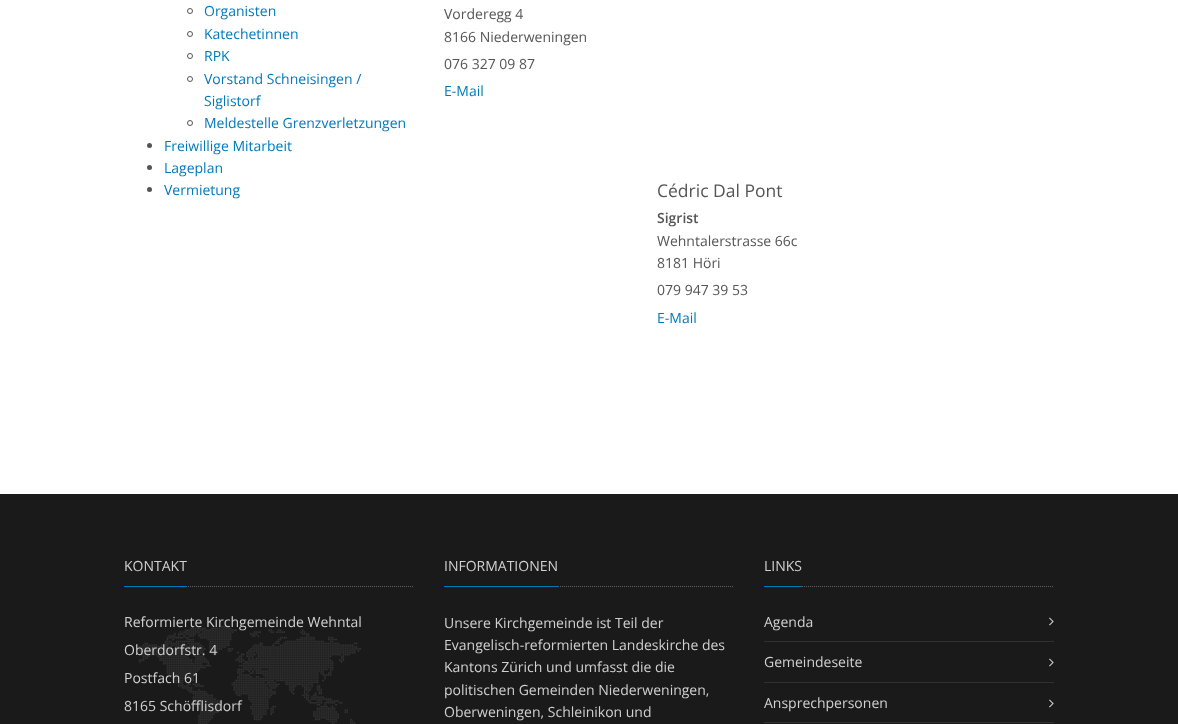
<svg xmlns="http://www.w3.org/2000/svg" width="1178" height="724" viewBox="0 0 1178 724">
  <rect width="100%" height="100%" fill="#ffffff"/>
  <circle cx="190" cy="11" r="2.5" fill="none" stroke="#555555"/>
  <text x="204" y="16" font-family="Open Sans" font-size="14" fill="#0079bc">Organisten</text>
  <circle cx="190" cy="34" r="2.5" fill="none" stroke="#555555"/>
  <text x="204" y="39" font-family="Open Sans" font-size="14" fill="#0079bc">Katechetinnen</text>
  <circle cx="190" cy="56" r="2.5" fill="none" stroke="#555555"/>
  <text x="204" y="61" font-family="Open Sans" font-size="14" fill="#0079bc">RPK</text>
  <circle cx="190" cy="79" r="2.5" fill="none" stroke="#555555"/>
  <text x="204" y="84" font-family="Open Sans" font-size="14" fill="#0079bc">Vorstand Schneisingen /</text>
  <text x="204" y="106" font-family="Open Sans" font-size="14" fill="#0079bc">Siglistorf</text>
  <circle cx="190" cy="123" r="2.5" fill="none" stroke="#555555"/>
  <text x="204" y="128" font-family="Open Sans" font-size="14" fill="#0079bc">Meldestelle Grenzverletzungen</text>
  <circle cx="149.5" cy="145.5" r="2.5" fill="#555555"/>
  <text x="164" y="151" font-family="Open Sans" font-size="14" fill="#0079bc">Freiwillige Mitarbeit</text>
  <circle cx="149.5" cy="167.5" r="2.5" fill="#555555"/>
  <text x="164" y="173" font-family="Open Sans" font-size="14" fill="#0079bc">Lageplan</text>
  <circle cx="149.5" cy="189.5" r="2.5" fill="#555555"/>
  <text x="164" y="195" font-family="Open Sans" font-size="14" fill="#0079bc">Vermietung</text>
  <text x="444" y="19" font-family="Open Sans" font-size="14" fill="#555555">Vorderegg 4</text>
  <text x="444" y="42" font-family="Open Sans" font-size="14" fill="#555555">8166 Niederweningen</text>
  <text x="444" y="69" font-family="Open Sans" font-size="14" fill="#555555">076 327 09 87</text>
  <text x="444" y="96" font-family="Open Sans" font-size="14" fill="#0079bc">E-Mail</text>
  <text x="657" y="197" font-family="Open Sans" font-size="17.5" fill="#555555">Cédric Dal Pont</text>
  <text x="657" y="223" font-family="Open Sans" font-size="14" font-weight="600" fill="#555555">Sigrist</text>
  <text x="657" y="246" font-family="Open Sans" font-size="14" fill="#555555">Wehntalerstrasse 66c</text>
  <text x="657" y="268" font-family="Open Sans" font-size="14" fill="#555555">8181 Höri</text>
  <text x="657" y="295" font-family="Open Sans" font-size="14" fill="#555555">079 947 39 53</text>
  <text x="657" y="323" font-family="Open Sans" font-size="14" fill="#0079bc">E-Mail</text>
  <rect x="0" y="494" width="1178" height="230" fill="#1a1a1a"/>
  <path d="M124 586.5H414" fill="none" stroke="#5f5f5f" stroke-dasharray="1 1"/>
  <rect x="124" y="586" width="63" height="1" fill="#0079bc"/>
  <text x="124" y="571" font-family="Open Sans" font-size="14" fill="#d1d1d1">KONTAKT</text>
  <image x="139" y="626" width="222" height="98" href="img1.png"/>
  <text x="124" y="627" font-family="Open Sans" font-size="14" fill="#d1d1d1">Reformierte Kirchgemeinde Wehntal</text>
  <text x="124" y="655" font-family="Open Sans" font-size="14" fill="#d1d1d1">Oberdorfstr. 4</text>
  <text x="124" y="683" font-family="Open Sans" font-size="14" fill="#d1d1d1">Postfach 61</text>
  <text x="124" y="711" font-family="Open Sans" font-size="14" fill="#d1d1d1">8165 Schöfflisdorf</text>
  <path d="M444 586.5H734" fill="none" stroke="#5f5f5f" stroke-dasharray="1 1"/>
  <rect x="444" y="586" width="114" height="1" fill="#0079bc"/>
  <text x="444" y="571" font-family="Open Sans" font-size="14" fill="#d1d1d1">INFORMATIONEN</text>
  <text x="444" y="628" font-family="Open Sans" font-size="14" fill="#d1d1d1">Unsere Kirchgemeinde ist Teil der</text>
  <text x="444" y="650" font-family="Open Sans" font-size="14" fill="#d1d1d1">Evangelisch-reformierten Landeskirche des</text>
  <text x="444" y="672" font-family="Open Sans" font-size="14" fill="#d1d1d1">Kantons Zürich und umfasst die die</text>
  <text x="444" y="695" font-family="Open Sans" font-size="14" fill="#d1d1d1">politischen Gemeinden Niederweningen,</text>
  <text x="444" y="717" font-family="Open Sans" font-size="14" fill="#d1d1d1">Oberweningen, Schleinikon und</text>
  <path d="M764 586.5H1054" fill="none" stroke="#5f5f5f" stroke-dasharray="1 1"/>
  <rect x="764" y="586" width="38" height="1" fill="#0079bc"/>
  <text x="764" y="571" font-family="Open Sans" font-size="14" fill="#d1d1d1">LINKS</text>
  <rect x="764" y="641" width="290" height="1" fill="#313131"/>
  <text x="764" y="627" font-family="Open Sans" font-size="14" fill="#d1d1d1">Agenda</text>
  <image x="1049" y="617" width="5" height="9" href="img2.png"/>
  <rect x="764" y="682" width="290" height="1" fill="#313131"/>
  <text x="764" y="667" font-family="Open Sans" font-size="14" fill="#d1d1d1">Gemeindeseite</text>
  <image x="1049" y="658" width="5" height="9" href="img2.png"/>
  <rect x="764" y="722" width="290" height="1" fill="#313131"/>
  <text x="764" y="708" font-family="Open Sans" font-size="14" fill="#d1d1d1">Ansprechpersonen</text>
  <image x="1049" y="699" width="5" height="9" href="img2.png"/>
</svg>
